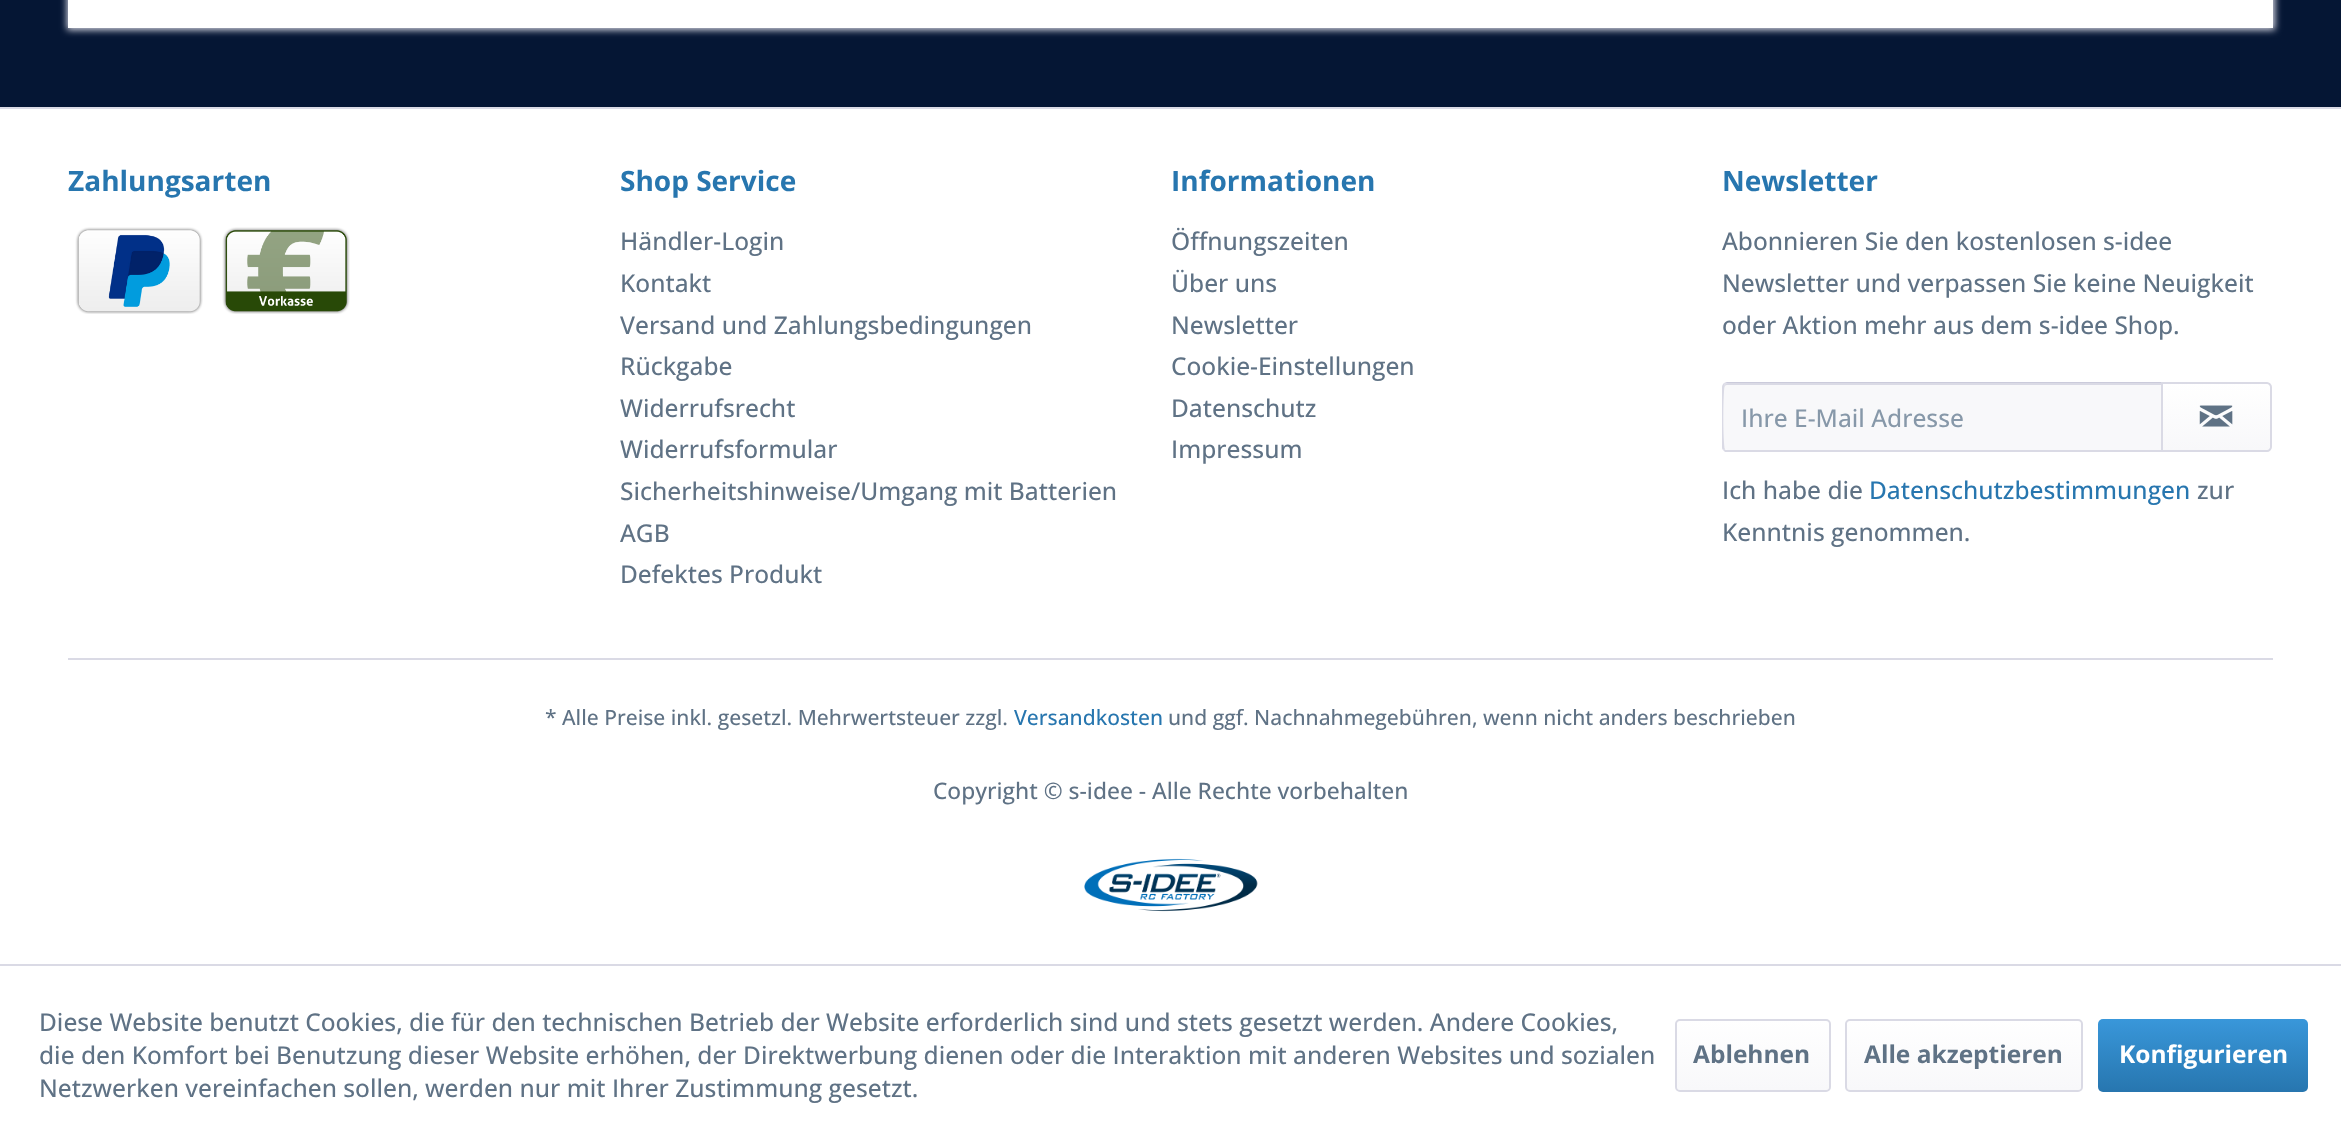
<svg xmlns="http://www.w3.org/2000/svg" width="2341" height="1142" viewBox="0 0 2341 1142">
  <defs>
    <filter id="blur1" x="-50%" y="-200%" width="200%" height="500%"><feGaussianBlur stdDeviation="3.5"/></filter>
    <linearGradient id="g1" gradientUnits="userSpaceOnUse" x1="2216" y1="383" x2="2216" y2="450"><stop offset="0" stop-color="#ffffff"/><stop offset="1" stop-color="#f8f8fa"/></linearGradient>
    <linearGradient id="g2" gradientUnits="userSpaceOnUse" x1="1753" y1="1020" x2="1753" y2="1090"><stop offset="0" stop-color="#ffffff"/><stop offset="1" stop-color="#f8f8fa"/></linearGradient>
    <linearGradient id="g3" gradientUnits="userSpaceOnUse" x1="1964" y1="1020" x2="1964" y2="1090"><stop offset="0" stop-color="#ffffff"/><stop offset="1" stop-color="#f8f8fa"/></linearGradient>
    <linearGradient id="g4" gradientUnits="userSpaceOnUse" x1="2203" y1="1019" x2="2203" y2="1092"><stop offset="0" stop-color="#3997da"/><stop offset="1" stop-color="#2776af"/></linearGradient>
  </defs>
  <rect width="100%" height="100%" fill="#051634"/>
  <rect x="67" y="-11" width="2208" height="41" fill="#dadae5" filter="url(#blur1)"/>
  <rect x="68" y="0" width="2205" height="28" fill="#ffffff"/>
  <rect x="0" y="109" width="2341" height="855" fill="#ffffff"/>
  <rect x="0" y="107" width="2341" height="2" fill="#dadae5"/>
  <rect x="68" y="658" width="2205" height="2" fill="#dadae5"/>
  <text x="68" y="191" font-family="Open Sans" font-size="28" font-weight="bold" fill="#2776af">Zahlungsarten</text>
  <image x="75" y="227" width="128" height="87" href="img1.png"/>
  <image x="222" y="227" width="128" height="87" href="img2.png"/>
  <text x="620" y="191" font-family="Open Sans" font-size="28" font-weight="bold" fill="#2776af">Shop Service</text>
  <text x="620" y="250" font-family="Open Sans" font-size="24.5" font-weight="500" fill="#5f7285">Händler-Login</text>
  <text x="620" y="292" font-family="Open Sans" font-size="24.5" font-weight="500" fill="#5f7285">Kontakt</text>
  <text x="620" y="334" font-family="Open Sans" font-size="24.5" font-weight="500" fill="#5f7285">Versand und Zahlungsbedingungen</text>
  <text x="620" y="375" font-family="Open Sans" font-size="24.5" font-weight="500" fill="#5f7285">Rückgabe</text>
  <text x="620" y="417" font-family="Open Sans" font-size="24.5" font-weight="500" fill="#5f7285">Widerrufsrecht</text>
  <text x="620" y="458" font-family="Open Sans" font-size="24.5" font-weight="500" fill="#5f7285">Widerrufsformular</text>
  <text x="620" y="500" font-family="Open Sans" font-size="24.5" font-weight="500" fill="#5f7285">Sicherheitshinweise/Umgang mit Batterien</text>
  <text x="620" y="542" font-family="Open Sans" font-size="24.5" font-weight="500" fill="#5f7285">AGB</text>
  <text x="620" y="583" font-family="Open Sans" font-size="24.5" font-weight="500" fill="#5f7285">Defektes Produkt</text>
  <text x="1171" y="191" font-family="Open Sans" font-size="28" font-weight="bold" fill="#2776af">Informationen</text>
  <text x="1171" y="250" font-family="Open Sans" font-size="24.5" font-weight="500" fill="#5f7285">Öffnungszeiten</text>
  <text x="1171" y="292" font-family="Open Sans" font-size="24.5" font-weight="500" fill="#5f7285">Über uns</text>
  <text x="1171" y="334" font-family="Open Sans" font-size="24.5" font-weight="500" fill="#5f7285">Newsletter</text>
  <text x="1171" y="375" font-family="Open Sans" font-size="24.5" font-weight="500" fill="#5f7285">Cookie-Einstellungen</text>
  <text x="1171" y="417" font-family="Open Sans" font-size="24.5" font-weight="500" fill="#5f7285">Datenschutz</text>
  <text x="1171" y="458" font-family="Open Sans" font-size="24.5" font-weight="500" fill="#5f7285">Impressum</text>
  <text x="1722" y="191" font-family="Open Sans" font-size="28" font-weight="bold" fill="#2776af">Newsletter</text>
  <text x="1722" y="250" font-family="Open Sans" font-size="24.5" font-weight="500" fill="#5f7285">Abonnieren Sie den kostenlosen s-idee</text>
  <text x="1722" y="292" font-family="Open Sans" font-size="24.5" font-weight="500" fill="#5f7285">Newsletter und verpassen Sie keine Neuigkeit</text>
  <text x="1722" y="334" font-family="Open Sans" font-size="24.5" font-weight="500" fill="#5f7285">oder Aktion mehr aus dem s-idee Shop.</text>
  <path d="M1728 383H2161V450H1728C1726 450 1724 448 1724 446V387C1724 385 1726 383 1728 383Z" fill="#f8f8fa"/>
  <path d="M1727 385H2161V383H1728C1726 383 1724 385 1724 387V388C1724 387 1725 385 1727 385Z" fill="#dadae5"/>
  <path d="M1727 382L1724 383L1725 384C1725 384 1726 383 1727 383H2161V384L2162 382Z" fill="#cbcbdb"/>
  <path d="M2163 452H1725L1723 450L1725 449C1725 450 1726 450 1727 450H2161Z" fill="#dadae5"/>
  <path d="M1722 387V446C1722 448 1722 449 1723 450L1725 449C1723 447 1723 386 1725 384L1724 383C1723 384 1722 385 1722 387Z" fill="#dadae5"/>
  <text x="1741" y="427" font-family="Open Sans" font-size="24.5" font-weight="500" fill="#8798a9">Ihre E-Mail Adresse</text>
  <path d="M2163 383H2266C2268 383 2270 385 2270 387V446C2270 448 2268 450 2266 450H2163Z" fill="url(#g1)"/>
  <path d="M2162 383H2267C2269 383 2271 385 2271 387V447C2271 449 2269 451 2267 451H2162Z" fill="none" stroke="#dadae5" stroke-width="2"/>
  <image x="2199" y="405" width="34" height="22" href="img3.png"/>
  <text x="1722" y="499" font-family="Open Sans" font-size="24.5" font-weight="500" fill="#5f7285">Ich habe die</text>
  <text x="1869" y="499" font-family="Open Sans" font-size="24.5" font-weight="500" fill="#2776af">Datenschutzbestimmungen</text>
  <text x="2197" y="499" font-family="Open Sans" font-size="24.5" font-weight="500" fill="#5f7285">zur</text>
  <text x="1722" y="541" font-family="Open Sans" font-size="24.5" font-weight="500" fill="#5f7285">Kenntnis genommen.</text>
  <text x="545" y="725" font-family="Open Sans" font-size="21" font-weight="500" fill="#5f7285">* Alle Preise inkl. gesetzl. Mehrwertsteuer zzgl.</text>
  <text x="1014" y="725" font-family="Open Sans" font-size="21" font-weight="500" fill="#2776af">Versandkosten</text>
  <text x="1168" y="725" font-family="Open Sans" font-size="21" font-weight="500" fill="#5f7285">und ggf. Nachnahmegebühren, wenn nicht anders beschrieben</text>
  <text x="933" y="799" font-family="Open Sans" font-size="22.75" font-weight="500" fill="#5f7285">Copyright © s-idee - Alle Rechte vorbehalten</text>
  <image x="1084" y="858" width="174" height="54" href="img4.png"/>
  <rect x="0" y="966" width="2341" height="176" fill="#ffffff"/>
  <rect x="0" y="964" width="2341" height="2" fill="#dadae5"/>
  <text x="39" y="1031" font-family="Open Sans" font-size="24.5" font-weight="500" fill="#5f7285">Diese Website benutzt Cookies, die für den technischen Betrieb der Website erforderlich sind und stets gesetzt werden. Andere Cookies,</text>
  <text x="39" y="1064" font-family="Open Sans" font-size="24.5" font-weight="500" fill="#5f7285">die den Komfort bei Benutzung dieser Website erhöhen, der Direktwerbung dienen oder die Interaktion mit anderen Websites und sozialen</text>
  <text x="39" y="1097" font-family="Open Sans" font-size="24.5" font-weight="500" fill="#5f7285">Netzwerken vereinfachen sollen, werden nur mit Ihrer Zustimmung gesetzt.</text>
  <rect x="1677" y="1020" width="152" height="70" rx="4" fill="url(#g2)"/>
  <rect x="1676" y="1020" width="154" height="71" rx="4" fill="none" stroke="#dadae5" stroke-width="2"/>
  <text x="1693" y="1063" font-family="Open Sans" font-size="24.5" font-weight="bold" fill="#5f7285">Ablehnen</text>
  <rect x="1846" y="1020" width="235" height="70" rx="4" fill="url(#g3)"/>
  <rect x="1846" y="1020" width="236" height="71" rx="4" fill="none" stroke="#dadae5" stroke-width="2"/>
  <text x="1864" y="1063" font-family="Open Sans" font-size="24.5" font-weight="bold" fill="#5f7285">Alle akzeptieren</text>
  <rect x="2098" y="1019" width="210" height="73" rx="5" fill="url(#g4)"/>
  <text x="2119" y="1063" font-family="Open Sans" font-size="24.5" font-weight="bold" fill="#ffffff">Konfigurieren</text>
</svg>
